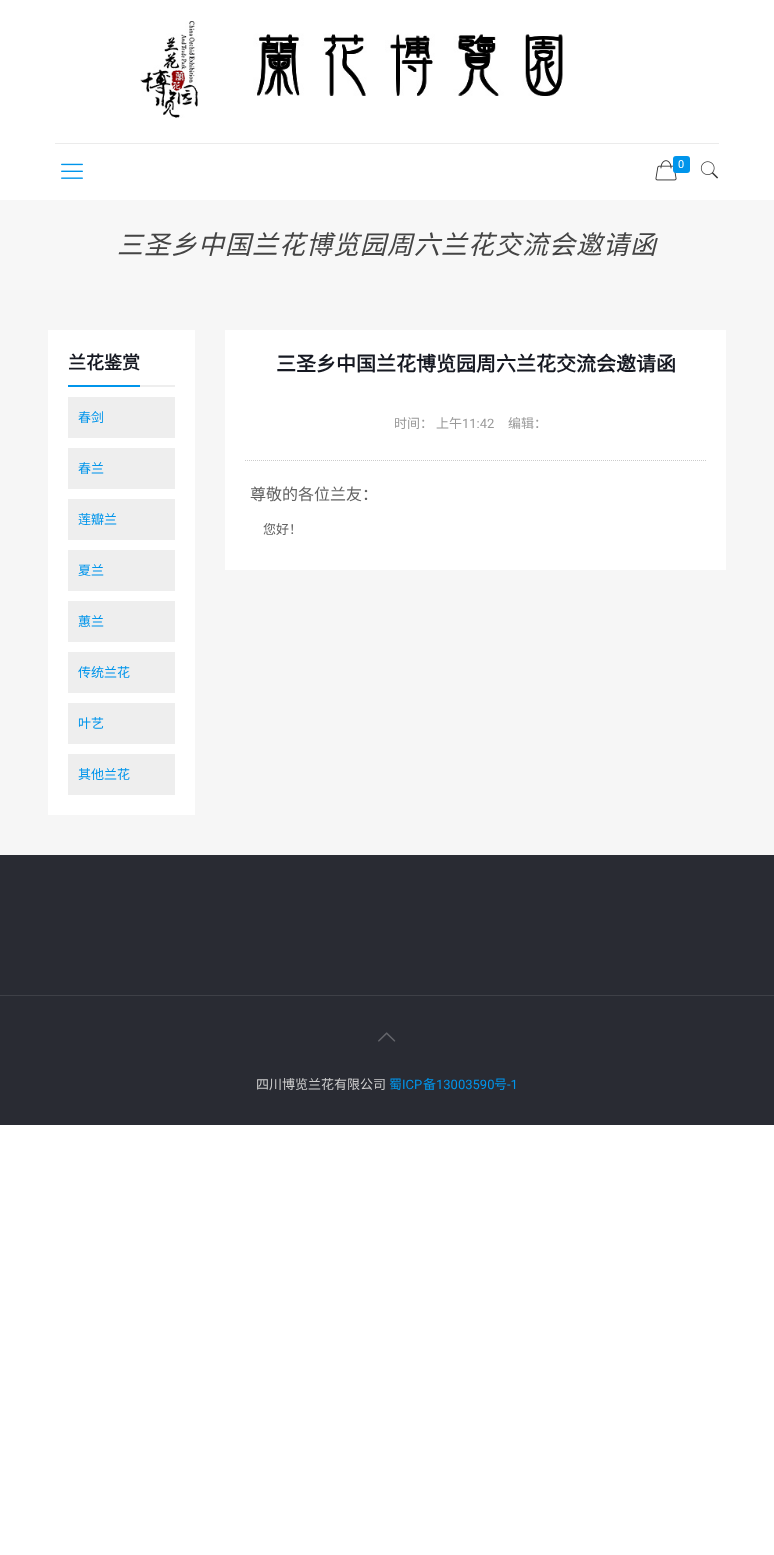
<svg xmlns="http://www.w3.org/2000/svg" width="774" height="1555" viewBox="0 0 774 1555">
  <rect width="100%" height="100%" fill="#ffffff"/>
  <rect x="55" y="143" width="664" height="1" fill="#ebebeb"/>
  <image x="140" y="21" width="423" height="97" href="img1.png"/>
  <image x="61" y="163" width="22" height="16" href="img2.png"/>
  <image x="655" y="160" width="22" height="21" href="img3.png"/>
  <rect x="673" y="156" width="17" height="17" rx="3" fill="#0095eb"/>
  <text x="678" y="168" font-family="Roboto" font-size="11" fill="#ffffff">0</text>
  <image x="700" y="161" width="19" height="18" href="img4.png"/>
  <rect x="0" y="200" width="774" height="90" fill="#f7f7f7"/>
  <text x="117" y="254" font-family="Noto Sans CJK SC" font-size="26" font-style="italic" letter-spacing="1" fill="#444444">三圣乡中国兰花博览园周六兰花交流会邀请函</text>
  <rect x="0" y="290" width="774" height="565" fill="#f6f6f6"/>
  <rect x="48" y="330" width="147" height="485" fill="#ffffff"/>
  <rect x="140" y="385" width="35" height="2" fill="#eeeeee"/>
  <rect x="68" y="385" width="72" height="2" fill="#0095eb"/>
  <text x="68" y="369" font-family="Noto Sans CJK SC" font-size="18" font-weight="bold" fill="#161922">兰花鉴赏</text>
  <rect x="68" y="397" width="107" height="41" fill="#eeeeee"/>
  <text x="78" y="422" font-family="Noto Sans CJK SC" font-size="13" fill="#0095eb">春剑</text>
  <rect x="68" y="448" width="107" height="41" fill="#eeeeee"/>
  <text x="78" y="473" font-family="Noto Sans CJK SC" font-size="13" fill="#0095eb">春兰</text>
  <rect x="68" y="499" width="107" height="41" fill="#eeeeee"/>
  <text x="78" y="524" font-family="Noto Sans CJK SC" font-size="13" fill="#0095eb">莲瓣兰</text>
  <rect x="68" y="550" width="107" height="41" fill="#eeeeee"/>
  <text x="78" y="575" font-family="Noto Sans CJK SC" font-size="13" fill="#0095eb">夏兰</text>
  <rect x="68" y="601" width="107" height="41" fill="#eeeeee"/>
  <text x="78" y="626" font-family="Noto Sans CJK SC" font-size="13" fill="#0095eb">蕙兰</text>
  <rect x="68" y="652" width="107" height="41" fill="#eeeeee"/>
  <text x="78" y="677" font-family="Noto Sans CJK SC" font-size="13" fill="#0095eb">传统兰花</text>
  <rect x="68" y="703" width="107" height="41" fill="#eeeeee"/>
  <text x="78" y="728" font-family="Noto Sans CJK SC" font-size="13" fill="#0095eb">叶艺</text>
  <rect x="68" y="754" width="107" height="41" fill="#eeeeee"/>
  <text x="78" y="779" font-family="Noto Sans CJK SC" font-size="13" fill="#0095eb">其他兰花</text>
  <rect x="225" y="330" width="501" height="240" fill="#ffffff"/>
  <path d="M245 460.5H706" fill="none" stroke="#cccccc" stroke-dasharray="1 1"/>
  <text x="276" y="371" font-family="Noto Sans CJK SC" font-size="20" font-weight="bold" fill="#161922">三圣乡中国兰花博览园周六兰花交流会邀请函</text>
  <text x="394" y="428" font-family="Noto Sans CJK SC" font-size="13" fill="#999999">时间：</text>
  <text x="436" y="428" font-family="Noto Sans CJK SC" font-size="13" fill="#999999">上午</text>
  <text x="462" y="428" font-family="Roboto" font-size="13" fill="#999999">11:42</text>
  <text x="508" y="428" font-family="Noto Sans CJK SC" font-size="13" fill="#999999">编辑：</text>
  <text x="250" y="500" font-family="Noto Sans CJK SC" font-size="16" fill="#626262">尊敬的各位兰友：</text>
  <text x="263" y="534" font-family="Noto Sans CJK SC" font-size="13" fill="#626262">您好！</text>
  <rect x="0" y="855" width="774" height="270" fill="#292b33"/>
  <rect x="0" y="995" width="774" height="1" fill="#3e4047"/>
  <image x="378" y="1032" width="18" height="10" href="img5.png"/>
  <text x="256" y="1089" font-family="Noto Sans CJK SC" font-size="13" fill="#cccccc">四川博览兰花有限公司</text>
  <text x="389" y="1089" font-family="Noto Sans CJK SC" font-size="13" fill="#0095eb">蜀</text>
  <text x="402" y="1089" font-family="Roboto" font-size="13" fill="#0095eb">ICP</text>
  <text x="423" y="1089" font-family="Noto Sans CJK SC" font-size="13" fill="#0095eb">备</text>
  <text x="436" y="1089" font-family="Roboto" font-size="13" fill="#0095eb">13003590</text>
  <text x="494" y="1089" font-family="Noto Sans CJK SC" font-size="13" fill="#0095eb">号</text>
  <text x="507" y="1089" font-family="Roboto" font-size="13" fill="#0095eb">-1</text>
</svg>
